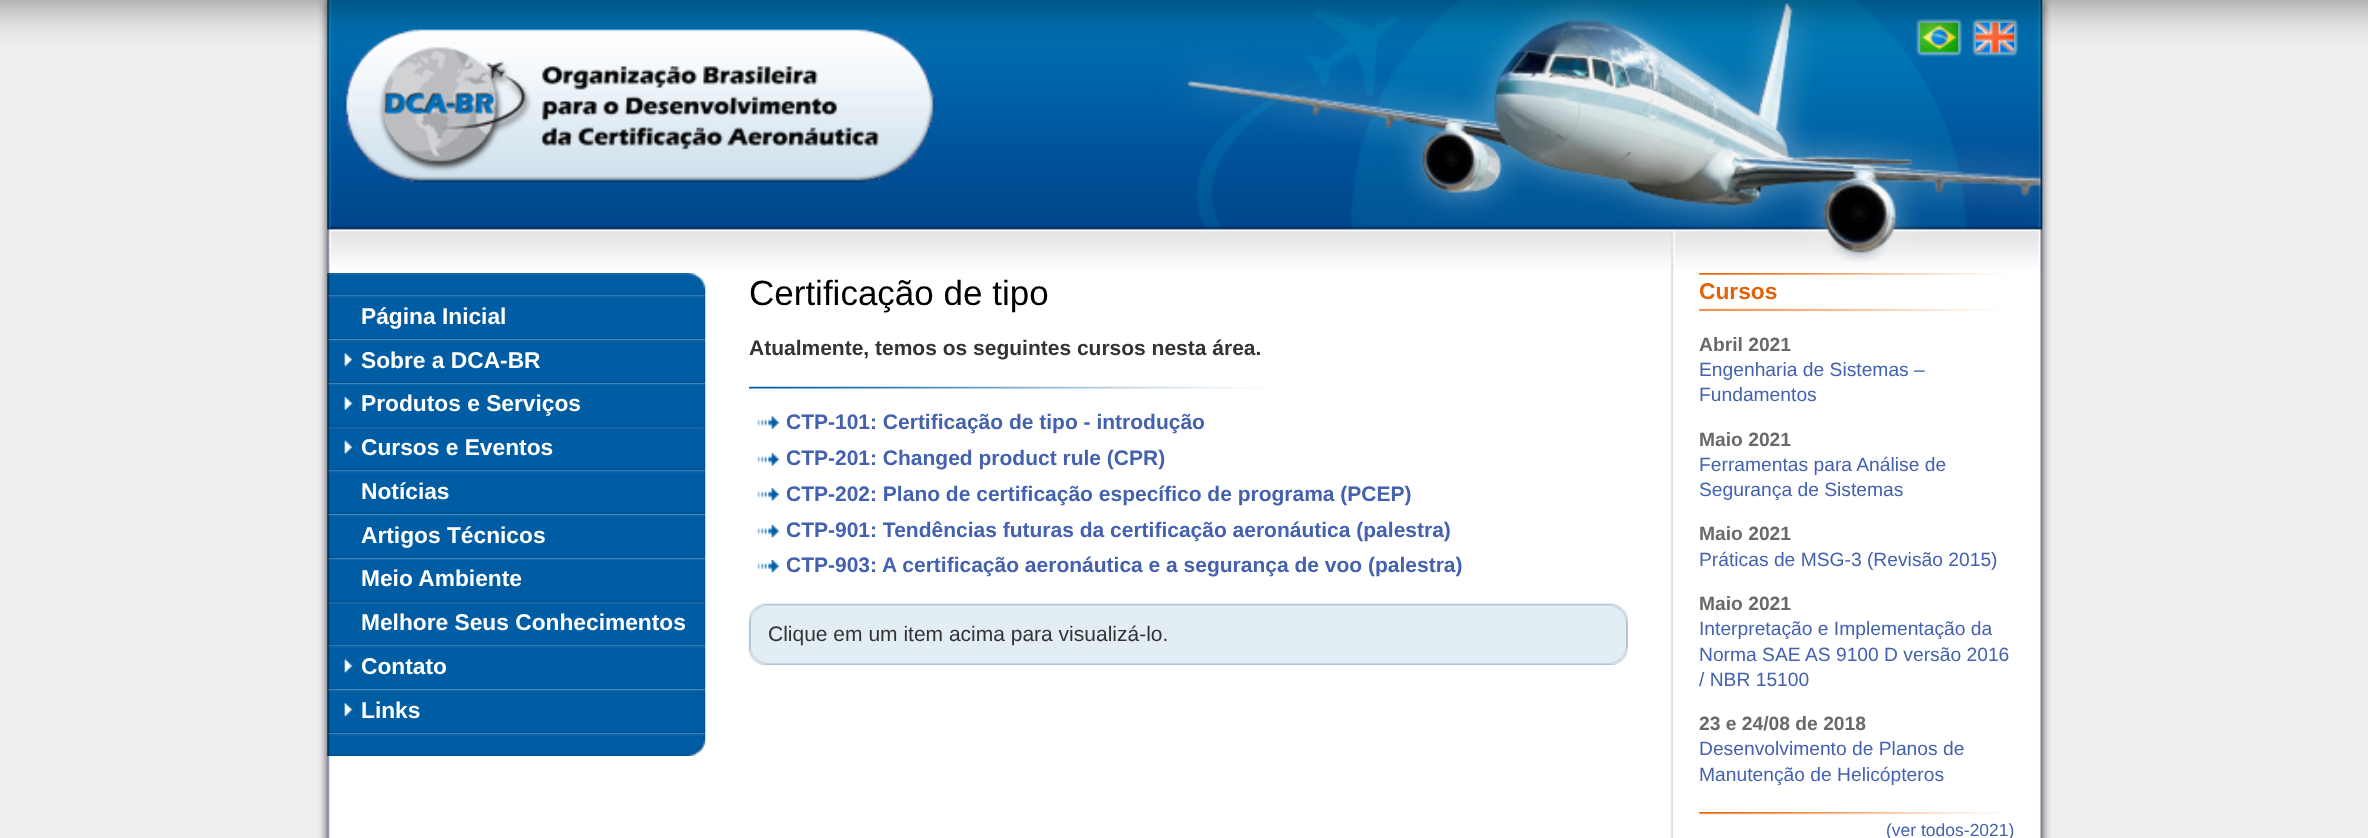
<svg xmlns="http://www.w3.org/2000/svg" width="2368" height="838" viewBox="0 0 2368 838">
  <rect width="100%" height="100%" fill="#eeeef1"/>
  <image x="319" y="52" width="1732" height="786" href="img1.png"/>
  <image x="0" y="0" width="2368" height="53" href="img2.png"/>
  <image x="327" y="0" width="1716" height="273" href="img3.png"/>
  <image x="344" y="29" width="591" height="154" href="img4.png"/>
  <image x="1916" y="19" width="47" height="38" href="img5.png"/>
  <image x="1919" y="22" width="40" height="31" href="img6.png"/>
  <image x="1972" y="19" width="47" height="38" href="img7.png"/>
  <image x="1975" y="22" width="40" height="31" href="img8.png"/>
  <image x="1671" y="264" width="2" height="574" href="img9.png"/>
  <image x="327" y="273" width="379" height="23" href="img10.png"/>
  <image x="327" y="295" width="379" height="45" href="img11.png"/>
  <text x="361" y="324" font-family="Liberation Sans" font-size="22.75" font-weight="bold" fill="#ffffff">Página Inicial</text>
  <image x="327" y="339" width="379" height="45" href="img13.png"/>
  <image x="344" y="353" width="9" height="14" href="img12.png"/>
  <text x="361" y="368" font-family="Liberation Sans" font-size="22.75" font-weight="bold" fill="#ffffff">Sobre a DCA-BR</text>
  <image x="327" y="383" width="379" height="44" href="img15.png"/>
  <image x="344" y="396" width="9" height="14" href="img14.png"/>
  <text x="361" y="411" font-family="Liberation Sans" font-size="22.75" font-weight="bold" fill="#ffffff">Produtos e Serviços</text>
  <image x="327" y="427" width="379" height="44" href="img17.png"/>
  <image x="344" y="440" width="9" height="14" href="img16.png"/>
  <text x="361" y="455" font-family="Liberation Sans" font-size="22.75" font-weight="bold" fill="#ffffff">Cursos e Eventos</text>
  <image x="327" y="470" width="379" height="45" href="img11.png"/>
  <text x="361" y="499" font-family="Liberation Sans" font-size="22.75" font-weight="bold" fill="#ffffff">Notícias</text>
  <image x="327" y="514" width="379" height="45" href="img13.png"/>
  <text x="361" y="543" font-family="Liberation Sans" font-size="22.75" font-weight="bold" fill="#ffffff">Artigos Técnicos</text>
  <image x="327" y="558" width="379" height="44" href="img15.png"/>
  <text x="361" y="586" font-family="Liberation Sans" font-size="22.75" font-weight="bold" fill="#ffffff">Meio Ambiente</text>
  <image x="327" y="602" width="379" height="44" href="img17.png"/>
  <text x="361" y="630" font-family="Liberation Sans" font-size="22.75" font-weight="bold" fill="#ffffff">Melhore Seus Conhecimentos</text>
  <image x="327" y="645" width="379" height="45" href="img11.png"/>
  <image x="344" y="659" width="9" height="14" href="img18.png"/>
  <text x="361" y="674" font-family="Liberation Sans" font-size="22.75" font-weight="bold" fill="#ffffff">Contato</text>
  <image x="327" y="733" width="379" height="23" href="img20.png"/>
  <image x="327" y="689" width="379" height="45" href="img19.png"/>
  <image x="344" y="703" width="9" height="14" href="img12.png"/>
  <text x="361" y="718" font-family="Liberation Sans" font-size="22.75" font-weight="bold" fill="#ffffff">Links</text>
  <text x="749" y="305" font-family="Liberation Sans" font-size="35" fill="#000000">Certificação de tipo</text>
  <text x="749" y="355" font-family="Liberation Sans" font-size="21" font-weight="bold" fill="#333333">Atualmente, temos os seguintes cursos nesta área.</text>
  <image x="749" y="386" width="519" height="3" href="img21.png"/>
  <image x="757" y="416" width="22" height="13" href="img22.png"/>
  <text x="786" y="429" font-family="Liberation Sans" font-size="21" font-weight="bold" fill="#4361af">CTP-101: Certificação de tipo - introdução</text>
  <image x="757" y="453" width="22" height="13" href="img23.png"/>
  <text x="786" y="465" font-family="Liberation Sans" font-size="21" font-weight="bold" fill="#4361af">CTP-201: Changed product rule (CPR)</text>
  <image x="757" y="488" width="22" height="13" href="img23.png"/>
  <text x="786" y="501" font-family="Liberation Sans" font-size="21" font-weight="bold" fill="#4361af">CTP-202: Plano de certificação específico de programa (PCEP)</text>
  <image x="757" y="525" width="22" height="13" href="img24.png"/>
  <text x="786" y="537" font-family="Liberation Sans" font-size="21" font-weight="bold" fill="#4361af">CTP-901: Tendências futuras da certificação aeronáutica (palestra)</text>
  <image x="757" y="560" width="22" height="13" href="img24.png"/>
  <text x="786" y="572" font-family="Liberation Sans" font-size="21" font-weight="bold" fill="#4361af">CTP-903: A certificação aeronáutica e a segurança de voo (palestra)</text>
  <image x="749" y="603" width="879" height="18" href="img25.png"/>
  <rect x="751" y="621" width="875" height="27" fill="#e3edf4"/>
  <rect x="1626" y="621" width="2" height="27" fill="#b2c6d4"/>
  <rect x="749" y="621" width="2" height="27" fill="#b2c6d4"/>
  <text x="768" y="641" font-family="Liberation Sans" font-size="21" fill="#333333">Clique em um item acima para visualizá-lo.</text>
  <image x="749" y="647" width="879" height="18" href="img26.png"/>
  <image x="1699" y="273" width="307" height="39" href="img27.png"/>
  <text x="1699" y="299" font-family="Liberation Sans" font-size="22.75" font-weight="bold" fill="#e66104">Cursos</text>
  <text x="1699" y="351" font-family="Liberation Sans" font-size="19.25" font-weight="bold" fill="#67696c">Abril 2021</text>
  <text x="1699" y="376" font-family="Liberation Sans" font-size="19.25" fill="#4361af">Engenharia de Sistemas –</text>
  <text x="1699" y="401" font-family="Liberation Sans" font-size="19.25" fill="#4361af">Fundamentos</text>
  <text x="1699" y="446" font-family="Liberation Sans" font-size="19.25" font-weight="bold" fill="#67696c">Maio 2021</text>
  <text x="1699" y="471" font-family="Liberation Sans" font-size="19.25" fill="#4361af">Ferramentas para Análise de</text>
  <text x="1699" y="496" font-family="Liberation Sans" font-size="19.25" fill="#4361af">Segurança de Sistemas</text>
  <text x="1699" y="540" font-family="Liberation Sans" font-size="19.25" font-weight="bold" fill="#67696c">Maio 2021</text>
  <text x="1699" y="566" font-family="Liberation Sans" font-size="19.25" fill="#4361af">Práticas de MSG-3 (Revisão 2015)</text>
  <text x="1699" y="610" font-family="Liberation Sans" font-size="19.25" font-weight="bold" fill="#67696c">Maio 2021</text>
  <text x="1699" y="635" font-family="Liberation Sans" font-size="19.25" fill="#4361af">Interpretação e Implementação da</text>
  <text x="1699" y="661" font-family="Liberation Sans" font-size="19.25" fill="#4361af">Norma SAE AS 9100 D versão 2016</text>
  <text x="1699" y="686" font-family="Liberation Sans" font-size="19.25" fill="#4361af">/ NBR 15100</text>
  <text x="1699" y="730" font-family="Liberation Sans" font-size="19.25" font-weight="bold" fill="#67696c">23 e 24/08 de 2018</text>
  <text x="1699" y="755" font-family="Liberation Sans" font-size="19.25" fill="#4361af">Desenvolvimento de Planos de</text>
  <text x="1699" y="781" font-family="Liberation Sans" font-size="19.25" fill="#4361af">Manutenção de Helicópteros</text>
  <image x="1699" y="812" width="307" height="3" href="img28.png"/>
  <text x="1886" y="836" font-family="Liberation Sans" font-size="17.5" fill="#4361af">(ver todos-2021)</text>
</svg>
